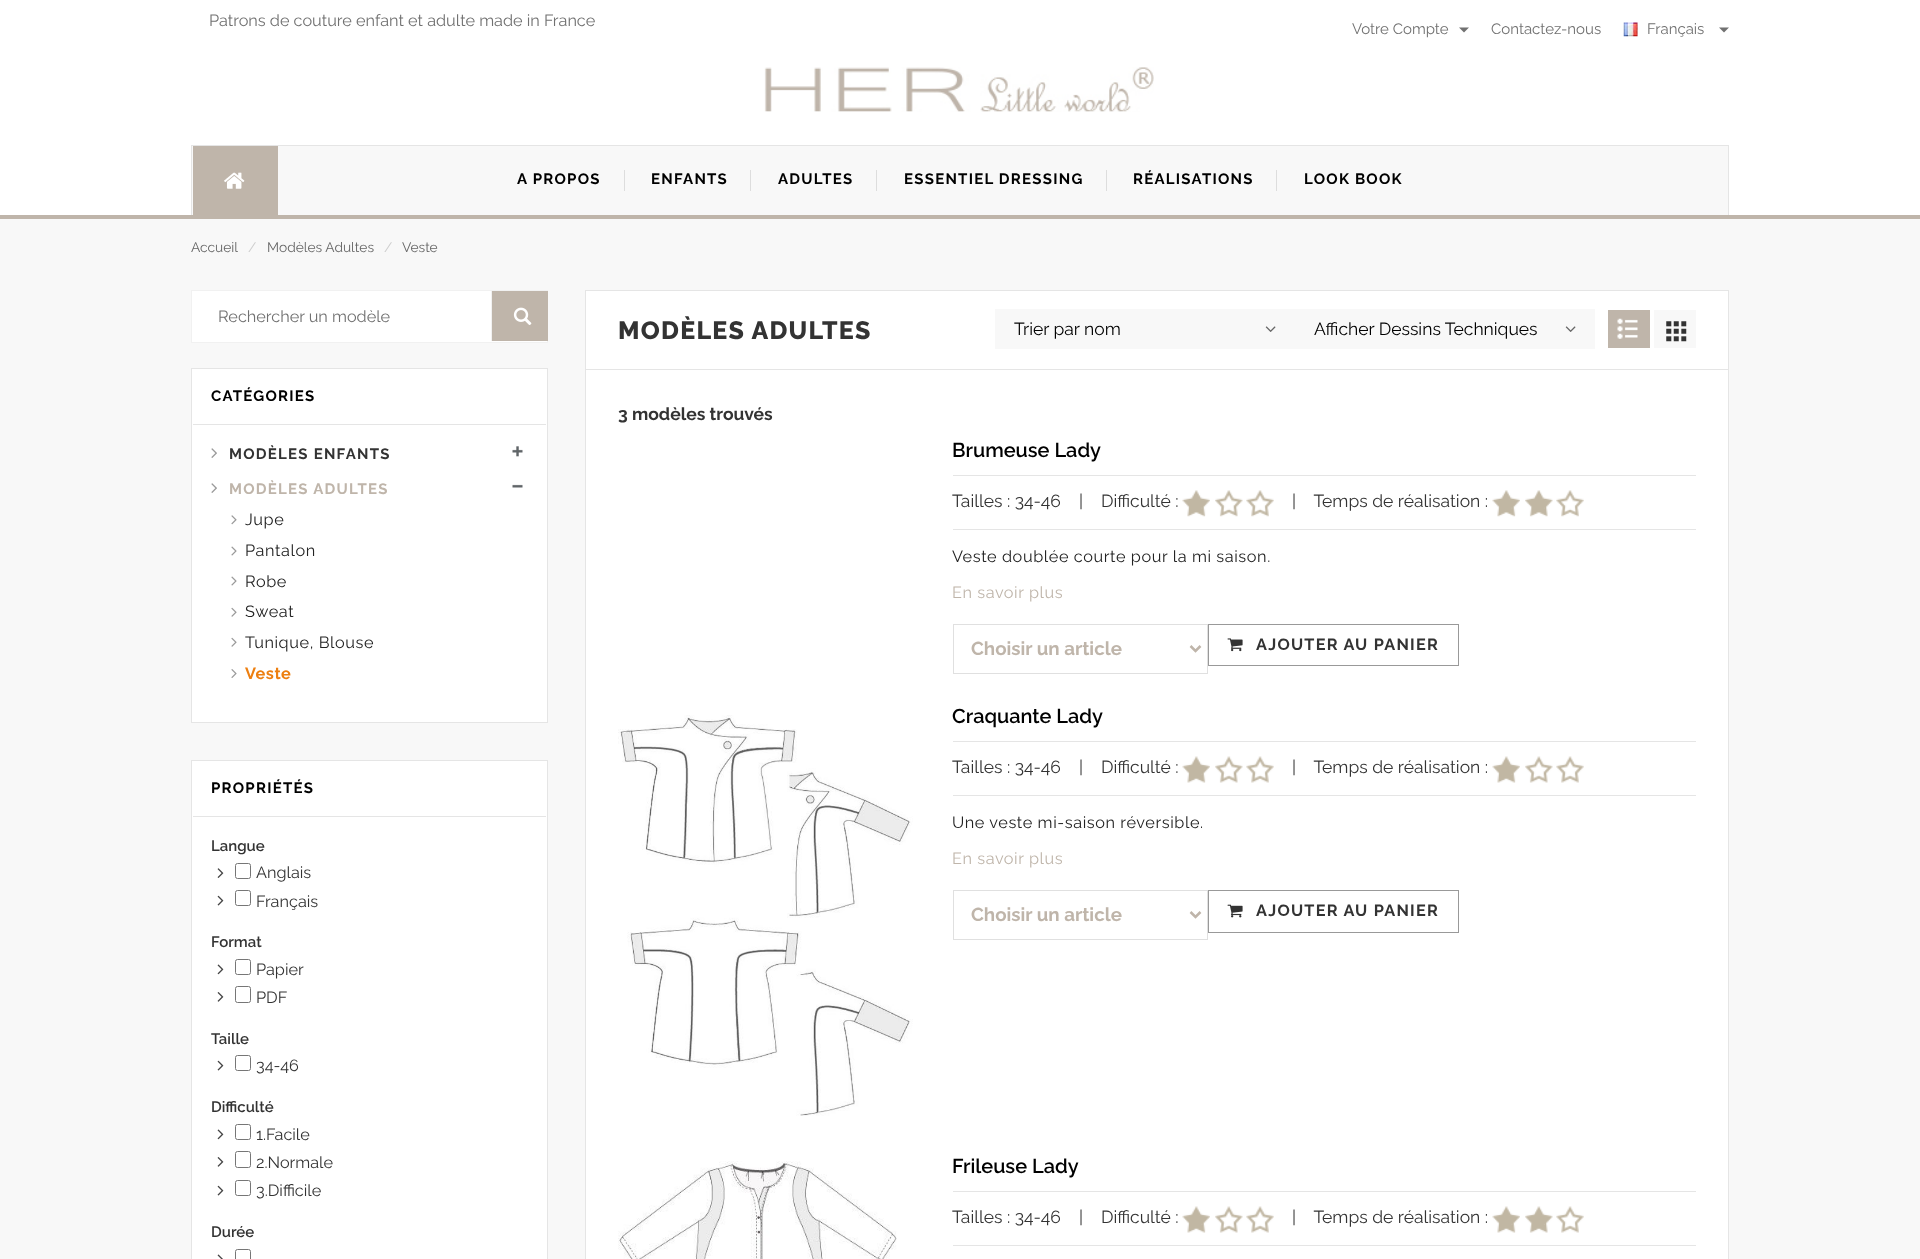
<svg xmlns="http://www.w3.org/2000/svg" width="1920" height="1259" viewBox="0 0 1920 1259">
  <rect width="100%" height="100%" fill="#f8f8f8"/>
  <rect x="0" y="0" width="1920" height="215" fill="#ffffff"/>
  <text x="209" y="26" font-family="Raleway" font-size="16.25" fill="#717171">Patrons de couture enfant et adulte made in France</text>
  <text x="1352" y="34" font-family="Raleway" font-size="15" fill="#717171">Votre Compte</text>
  <path d="M1459 27.5H1469L1464 32.5Z" fill="#717171"/>
  <text x="1491" y="34" font-family="Raleway" font-size="15" fill="#717171">Contactez-nous</text>
  <image x="1623" y="22" width="15" height="15" href="img1.png"/>
  <text x="1647" y="34" font-family="Raleway" font-size="15" fill="#717171">Français</text>
  <path d="M1719 27.5H1729L1724 32.5Z" fill="#717171"/>
  <image x="764" y="67" width="390" height="45" href="img2.png"/>
  <rect x="0" y="215" width="1920" height="4" fill="#bfb5aa"/>
  <rect x="192" y="146" width="1536" height="69" fill="#f8f8f8"/>
  <rect x="191" y="145" width="1538" height="1" fill="#e5e5e5"/>
  <rect x="1728" y="145" width="1" height="70" fill="#e5e5e5"/>
  <rect x="191" y="145" width="1" height="70" fill="#e5e5e5"/>
  <rect x="193" y="146" width="85" height="69" fill="#bfb5aa"/>
  <image x="224" y="172" width="21" height="17" href="img3.png"/>
  <rect x="624" y="170" width="1" height="21" fill="#dddddd"/>
  <text x="517" y="184" font-family="Raleway" font-size="15" font-weight="bold" letter-spacing="1.25" fill="#000000">A PROPOS</text>
  <rect x="750" y="170" width="1" height="21" fill="#dddddd"/>
  <text x="651" y="184" font-family="Raleway" font-size="15" font-weight="bold" letter-spacing="1.25" fill="#000000">ENFANTS</text>
  <rect x="876" y="170" width="1" height="21" fill="#dddddd"/>
  <text x="778" y="184" font-family="Raleway" font-size="15" font-weight="bold" letter-spacing="1.25" fill="#000000">ADULTES</text>
  <rect x="1106" y="170" width="1" height="21" fill="#dddddd"/>
  <text x="904" y="184" font-family="Raleway" font-size="15" font-weight="bold" letter-spacing="1.25" fill="#000000">ESSENTIEL DRESSING</text>
  <rect x="1276" y="170" width="1" height="21" fill="#dddddd"/>
  <text x="1133" y="184" font-family="Raleway" font-size="15" font-weight="bold" letter-spacing="1.25" fill="#000000">RÉALISATIONS</text>
  <text x="1304" y="184" font-family="Raleway" font-size="15" font-weight="bold" letter-spacing="1.25" fill="#000000">LOOK BOOK</text>
  <text x="191" y="252" font-family="Raleway" font-size="13.75" fill="#666666">Accueil</text>
  <text x="248" y="252" font-family="Raleway" font-size="13.75" fill="#cccccc">/</text>
  <text x="267" y="252" font-family="Raleway" font-size="13.75" fill="#666666">Modèles Adultes</text>
  <text x="384" y="252" font-family="Raleway" font-size="13.75" fill="#cccccc">/</text>
  <text x="402" y="252" font-family="Raleway" font-size="13.75" fill="#666666">Veste</text>
  <rect x="191.5" y="290.5" width="356" height="52" fill="#ffffff" stroke="#f1f1f1"/>
  <text x="218" y="322" font-family="Raleway" font-size="16.25" fill="#717171">Rechercher un modèle</text>
  <rect x="492" y="291" width="56" height="50" fill="#bfb5aa"/>
  <rect x="491" y="291" width="1" height="50" fill="#f1f1f1"/>
  <image x="513" y="307" width="19" height="18" href="img4.png"/>
  <rect x="191.5" y="368.5" width="356" height="354" fill="#ffffff" stroke="#e5e5e5"/>
  <rect x="193" y="424" width="353" height="1" fill="#e5e5e5"/>
  <text x="211" y="401" font-family="Raleway" font-size="15" font-weight="bold" letter-spacing="1.25" fill="#000000">CATÉGORIES</text>
  <image x="211" y="448" width="6" height="10" href="img5.png"/>
  <text x="229" y="459" font-family="Raleway" font-size="15" font-weight="bold" letter-spacing="1.25" fill="#333333">MODÈLES ENFANTS</text>
  <image x="512" y="446" width="11" height="11" href="img6.png"/>
  <image x="211" y="483" width="6" height="10" href="img5.png"/>
  <text x="229" y="494" font-family="Raleway" font-size="15" font-weight="bold" letter-spacing="1.25" fill="#bfb5aa">MODÈLES ADULTES</text>
  <image x="512" y="484" width="11" height="4" href="img7.png"/>
  <image x="231" y="515" width="6" height="10" href="img8.png"/>
  <text x="245" y="525" font-family="Raleway" font-size="16.25" letter-spacing="0.6" fill="#222222">Jupe</text>
  <image x="231" y="546" width="6" height="10" href="img9.png"/>
  <text x="245" y="556" font-family="Raleway" font-size="16.25" letter-spacing="0.6" fill="#222222">Pantalon</text>
  <image x="231" y="576" width="6" height="10" href="img9.png"/>
  <text x="245" y="587" font-family="Raleway" font-size="16.25" letter-spacing="0.6" fill="#222222">Robe</text>
  <image x="231" y="607" width="6" height="10" href="img10.png"/>
  <text x="245" y="617" font-family="Raleway" font-size="16.25" letter-spacing="0.6" fill="#222222">Sweat</text>
  <image x="231" y="637" width="6" height="10" href="img10.png"/>
  <text x="245" y="648" font-family="Raleway" font-size="16.25" letter-spacing="0.6" fill="#222222">Tunique, Blouse</text>
  <image x="231" y="669" width="6" height="9" href="img11.png"/>
  <text x="245" y="679" font-family="Raleway" font-size="16.25" font-weight="bold" letter-spacing="0.6" fill="#ed7f10">Veste</text>
  <rect x="191.5" y="760.5" width="356" height="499" fill="#ffffff" stroke="#e5e5e5"/>
  <rect x="193" y="816" width="353" height="1" fill="#e5e5e5"/>
  <text x="211" y="793" font-family="Raleway" font-size="15" font-weight="bold" letter-spacing="1.25" fill="#000000">PROPRIÉTÉS</text>
  <text x="211" y="851" font-family="Raleway" font-size="15" font-weight="600" fill="#333333">Langue</text>
  <image x="217" y="868" width="7" height="10" href="img12.png"/>
  <rect x="235.5" y="863.5" width="15" height="15" rx="2" fill="none" stroke="#767676"/>
  <text x="256" y="878" font-family="Raleway" font-size="16.25" fill="#333333">Anglais</text>
  <image x="217" y="895" width="7" height="11" href="img13.png"/>
  <rect x="235.5" y="890.5" width="15" height="15" rx="2" fill="none" stroke="#767676"/>
  <text x="256" y="907" font-family="Raleway" font-size="16.25" fill="#333333">Français</text>
  <text x="211" y="947" font-family="Raleway" font-size="15" font-weight="600" fill="#333333">Format</text>
  <image x="217" y="964" width="7" height="11" href="img14.png"/>
  <rect x="235.5" y="959.5" width="15" height="15" rx="2" fill="none" stroke="#767676"/>
  <text x="256" y="975" font-family="Raleway" font-size="16.25" fill="#333333">Papier</text>
  <image x="217" y="992" width="7" height="10" href="img15.png"/>
  <rect x="235.5" y="986.5" width="15" height="16" rx="2" fill="none" stroke="#767676"/>
  <text x="256" y="1003" font-family="Raleway" font-size="16.25" fill="#333333">PDF</text>
  <text x="211" y="1044" font-family="Raleway" font-size="15" font-weight="600" fill="#333333">Taille</text>
  <image x="217" y="1060" width="7" height="11" href="img13.png"/>
  <rect x="235.5" y="1055.5" width="15" height="15" rx="2" fill="none" stroke="#767676"/>
  <text x="256" y="1071" font-family="Raleway" font-size="16.25" fill="#333333">34-46</text>
  <text x="211" y="1112" font-family="Raleway" font-size="15" font-weight="600" fill="#333333">Difficulté</text>
  <image x="217" y="1129" width="7" height="11" href="img14.png"/>
  <rect x="235.5" y="1124.5" width="15" height="15" rx="2" fill="none" stroke="#767676"/>
  <text x="256" y="1140" font-family="Raleway" font-size="16.25" fill="#333333">1.Facile</text>
  <image x="217" y="1157" width="7" height="10" href="img15.png"/>
  <rect x="235.5" y="1151.5" width="15" height="16" rx="2" fill="none" stroke="#767676"/>
  <text x="256" y="1168" font-family="Raleway" font-size="16.25" fill="#333333">2.Normale</text>
  <image x="217" y="1185" width="7" height="11" href="img13.png"/>
  <rect x="235.5" y="1180.5" width="15" height="15" rx="2" fill="none" stroke="#767676"/>
  <text x="256" y="1196" font-family="Raleway" font-size="16.25" fill="#333333">3.Difficile</text>
  <text x="211" y="1237" font-family="Raleway" font-size="15" font-weight="600" fill="#333333">Durée</text>
  <image x="217" y="1254" width="6" height="5" href="img16.png"/>
  <rect x="235.5" y="1249.5" width="15" height="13" rx="2" fill="none" stroke="#767676"/>
  <rect x="585.5" y="290.5" width="1143" height="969" fill="#ffffff" stroke="#e5e5e5"/>
  <rect x="586" y="369" width="1142" height="1" fill="#e5e5e5"/>
  <text x="618" y="339" font-family="Raleway" font-size="25" font-weight="800" letter-spacing="1.25" fill="#333333">MODÈLES ADULTES</text>
  <rect x="995" y="309" width="600" height="40" fill="#f8f8f8"/>
  <text x="1014" y="335" font-family="Raleway" font-size="17.5" fill="#000000">Trier par nom</text>
  <image x="1265" y="326" width="11" height="6" href="img17.png"/>
  <text x="1314" y="335" font-family="Raleway" font-size="17.5" fill="#000000">Afficher Dessins Techniques</text>
  <image x="1565" y="326" width="11" height="6" href="img17.png"/>
  <rect x="1608" y="310" width="42" height="38" fill="#bfb5aa"/>
  <rect x="1654" y="310" width="42" height="38" fill="#f8f8f8"/>
  <image x="1617" y="318" width="21" height="21" href="img18.png"/>
  <image x="1666" y="321" width="21" height="21" href="img19.png"/>
  <text x="618" y="420" font-family="Raleway" font-size="17.5" font-weight="bold" fill="#333333">3 modèles trouvés</text>
  <text x="952" y="457" font-family="Raleway" font-size="20" font-weight="600" fill="#000000">Brumeuse Lady</text>
  <rect x="953" y="475" width="743" height="1" fill="#e5e5e5"/>
  <rect x="953" y="529" width="743" height="1" fill="#e5e5e5"/>
  <text x="952" y="507" font-family="Raleway" font-size="17.5" fill="#333333">Tailles : 34-46</text>
  <text x="1079" y="507" font-family="Raleway" font-size="17.5" fill="#333333" xml:space="preserve">|    Difficulté :</text>
  <image x="1182" y="490" width="28" height="27" href="img20.png"/>
  <image x="1215" y="490" width="28" height="27" href="img21.png"/>
  <image x="1246" y="490" width="28" height="27" href="img22.png"/>
  <text x="1292" y="507" font-family="Raleway" font-size="17.5" fill="#333333" xml:space="preserve">|    Temps de réalisation :</text>
  <image x="1492" y="490" width="28" height="27" href="img20.png"/>
  <image x="1525" y="490" width="28" height="27" href="img23.png"/>
  <image x="1556" y="490" width="28" height="27" href="img24.png"/>
  <text x="952" y="562" font-family="Raleway" font-size="16.25" letter-spacing="0.6" fill="#222222">Veste doublée courte pour la mi saison.</text>
  <text x="952" y="598" font-family="Raleway" font-size="16.25" letter-spacing="0.6" fill="#bfb5aa">En savoir plus</text>
  <rect x="953.5" y="624.5" width="254" height="49" fill="none" stroke="#e0e0e0"/>
  <path d="M1190.5 646L1195.5 651L1200.5 646" fill="none" stroke="#bfb5aa" stroke-width="2.5"/>
  <text x="971" y="655" font-family="Raleway" font-size="18.75" font-weight="bold" fill="#bfb5aa">Choisir un article</text>
  <rect x="1208.5" y="624.5" width="250" height="41" fill="none" stroke="#999999"/>
  <image x="1227" y="638" width="16" height="14" href="img25.png"/>
  <text x="1256" y="650" font-family="Raleway" font-size="16.25" font-weight="bold" letter-spacing="1.25" fill="#333333">AJOUTER AU PANIER</text>
  <image x="618" y="715" width="295" height="401" href="img26.png"/>
  <text x="952" y="723" font-family="Raleway" font-size="20" font-weight="600" fill="#000000">Craquante Lady</text>
  <rect x="953" y="741" width="743" height="1" fill="#e5e5e5"/>
  <rect x="953" y="795" width="743" height="1" fill="#e5e5e5"/>
  <text x="952" y="773" font-family="Raleway" font-size="17.5" fill="#333333">Tailles : 34-46</text>
  <text x="1079" y="773" font-family="Raleway" font-size="17.5" fill="#333333" xml:space="preserve">|    Difficulté :</text>
  <image x="1182" y="756" width="28" height="27" href="img27.png"/>
  <image x="1215" y="756" width="28" height="27" href="img28.png"/>
  <image x="1246" y="756" width="28" height="27" href="img29.png"/>
  <text x="1292" y="773" font-family="Raleway" font-size="17.5" fill="#333333" xml:space="preserve">|    Temps de réalisation :</text>
  <image x="1492" y="756" width="28" height="27" href="img27.png"/>
  <image x="1525" y="756" width="28" height="27" href="img28.png"/>
  <image x="1556" y="756" width="28" height="27" href="img30.png"/>
  <text x="952" y="828" font-family="Raleway" font-size="16.25" letter-spacing="0.6" fill="#222222">Une veste mi-saison réversible.</text>
  <text x="952" y="864" font-family="Raleway" font-size="16.25" letter-spacing="0.6" fill="#bfb5aa">En savoir plus</text>
  <rect x="953.5" y="890.5" width="254" height="49" fill="none" stroke="#e0e0e0"/>
  <path d="M1190.5 912L1195.5 917L1200.5 912" fill="none" stroke="#bfb5aa" stroke-width="2.5"/>
  <text x="971" y="921" font-family="Raleway" font-size="18.75" font-weight="bold" fill="#bfb5aa">Choisir un article</text>
  <rect x="1208.5" y="890.5" width="250" height="42" fill="none" stroke="#999999"/>
  <image x="1227" y="904" width="16" height="14" href="img31.png"/>
  <text x="1256" y="916" font-family="Raleway" font-size="16.25" font-weight="bold" letter-spacing="1.25" fill="#333333">AJOUTER AU PANIER</text>
  <image x="618" y="1161" width="279" height="98" href="img32.png"/>
  <text x="952" y="1173" font-family="Raleway" font-size="20" font-weight="600" fill="#000000">Frileuse Lady</text>
  <rect x="953" y="1191" width="743" height="1" fill="#e5e5e5"/>
  <rect x="953" y="1245" width="743" height="1" fill="#e5e5e5"/>
  <text x="952" y="1223" font-family="Raleway" font-size="17.5" fill="#333333">Tailles : 34-46</text>
  <text x="1079" y="1223" font-family="Raleway" font-size="17.5" fill="#333333" xml:space="preserve">|    Difficulté :</text>
  <image x="1182" y="1206" width="28" height="27" href="img27.png"/>
  <image x="1215" y="1206" width="28" height="27" href="img28.png"/>
  <image x="1246" y="1206" width="28" height="27" href="img29.png"/>
  <text x="1292" y="1223" font-family="Raleway" font-size="17.5" fill="#333333" xml:space="preserve">|    Temps de réalisation :</text>
  <image x="1492" y="1206" width="28" height="27" href="img27.png"/>
  <image x="1525" y="1206" width="28" height="27" href="img33.png"/>
  <image x="1556" y="1206" width="28" height="27" href="img30.png"/>
</svg>
